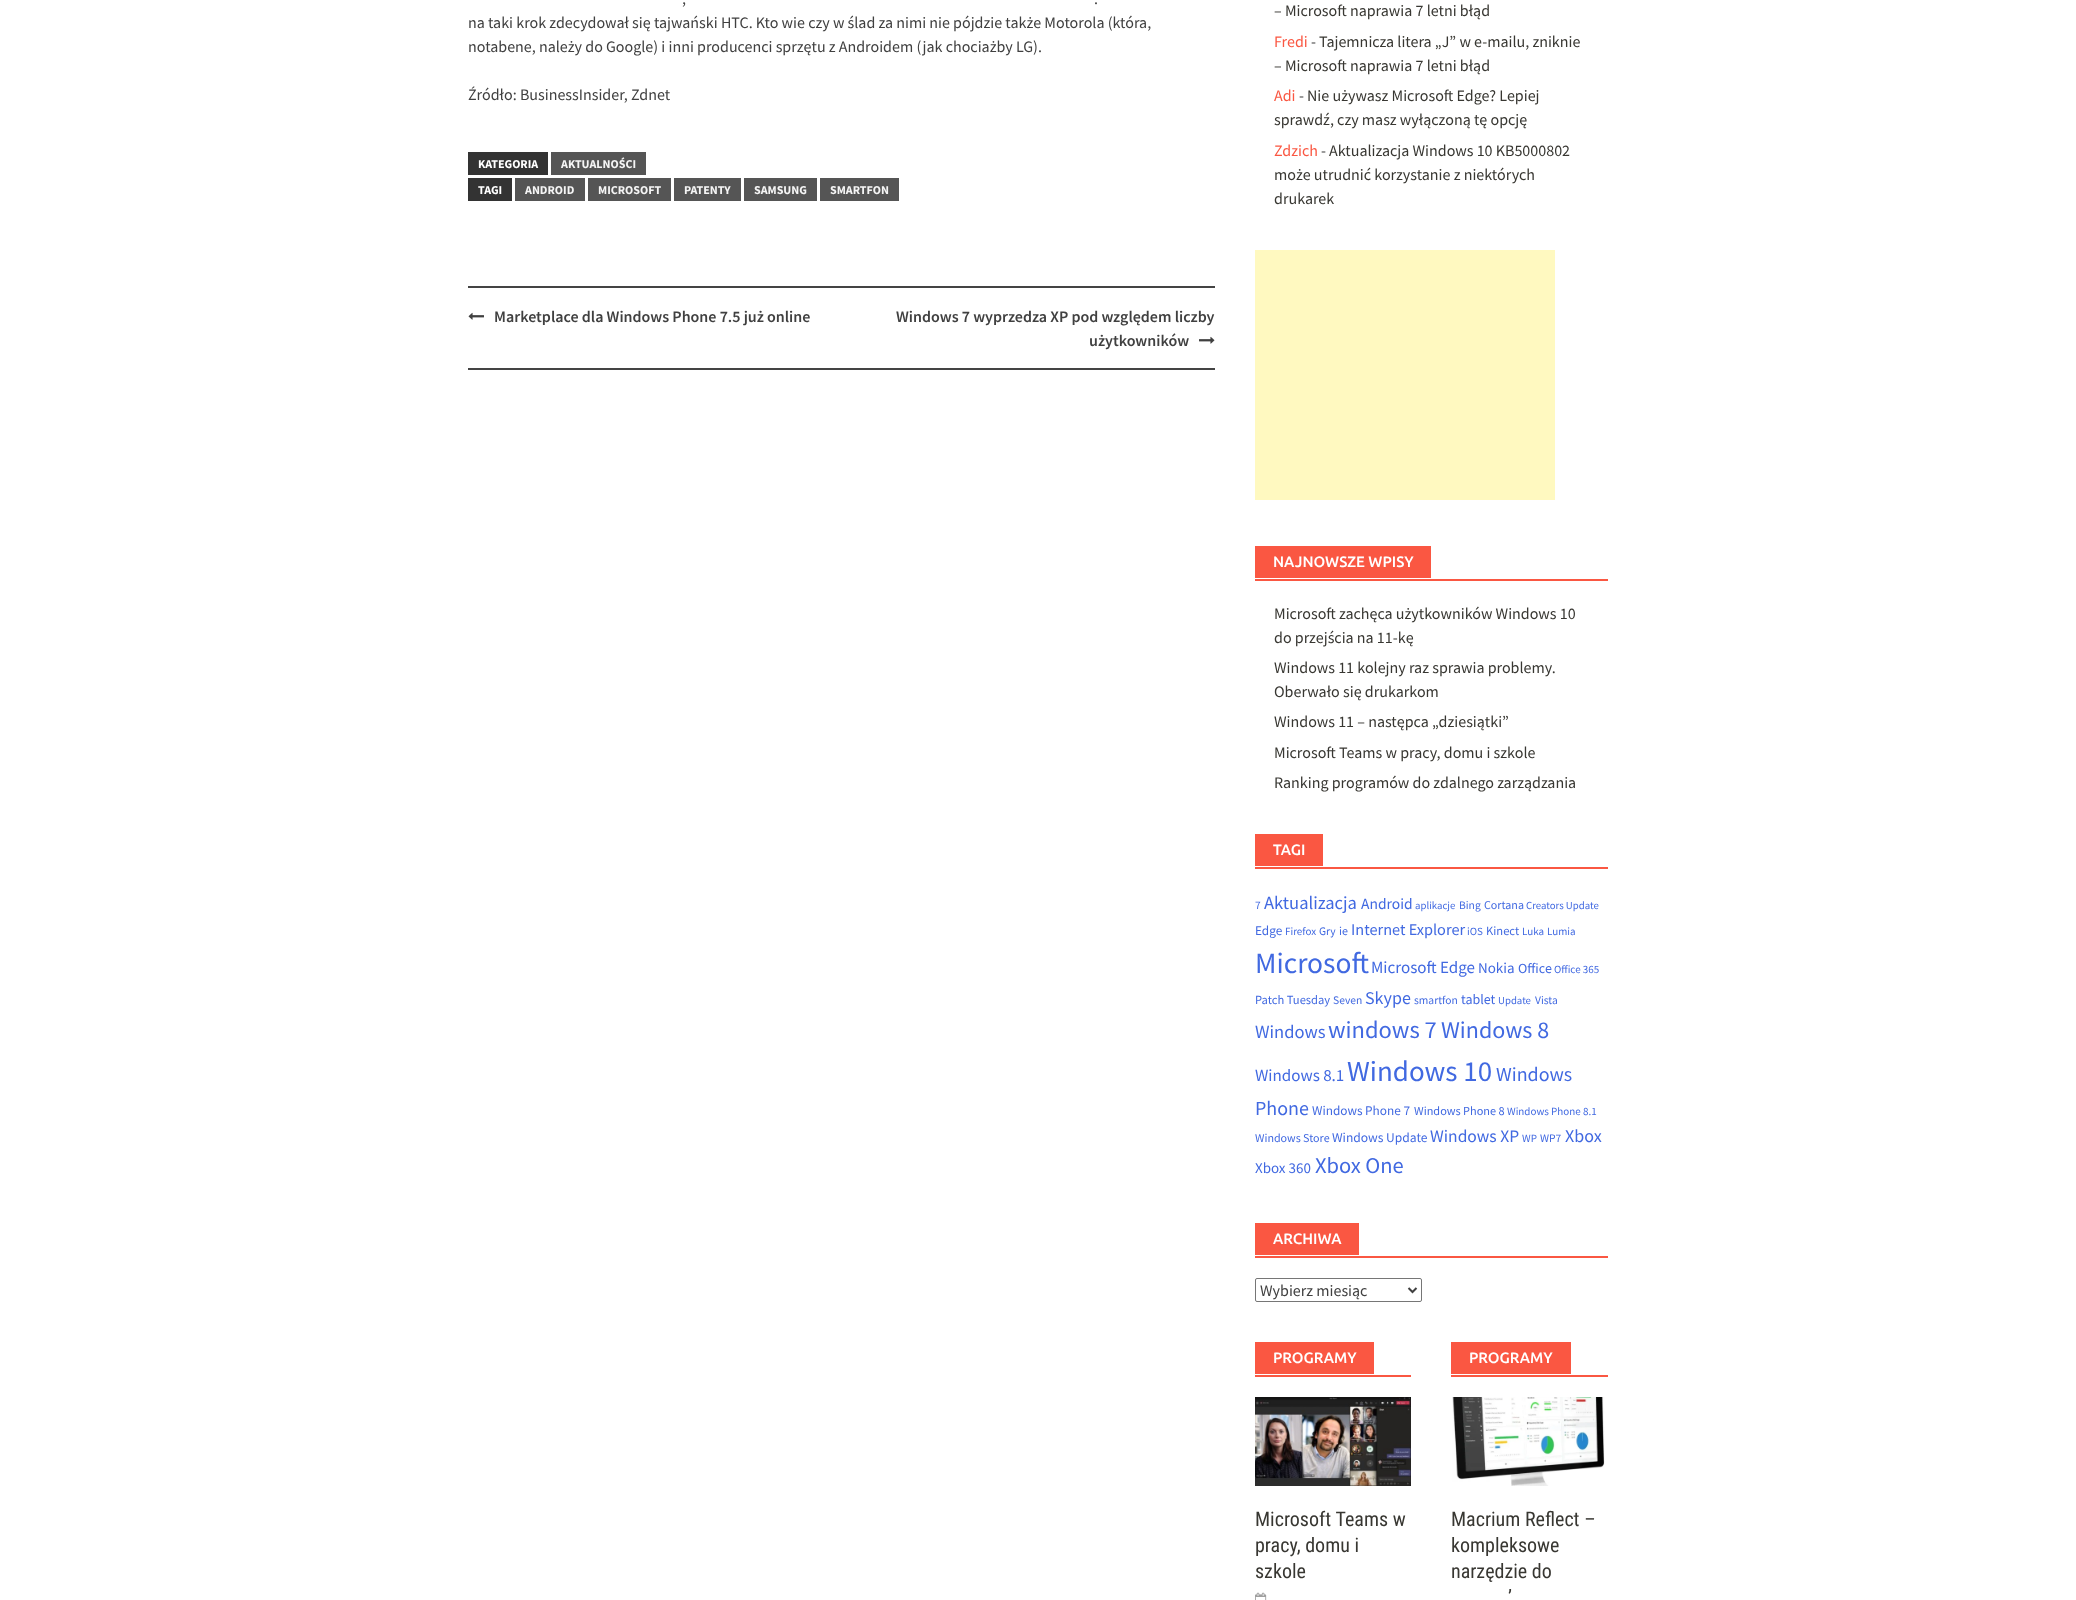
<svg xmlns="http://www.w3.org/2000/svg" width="2076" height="1600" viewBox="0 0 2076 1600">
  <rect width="100%" height="100%" fill="#ffffff"/>
  <text x="682" y="4" font-family="Source Sans Pro" font-size="16" fill="#404040">,</text>
  <text x="1094" y="4" font-family="Source Sans Pro" font-size="16" fill="#404040">.</text>
  <text x="468" y="28" font-family="Source Sans Pro" font-size="16" fill="#404040">na taki krok zdecydował się tajwański HTC. Kto wie czy w ślad za nimi nie pójdzie także Motorola (która,</text>
  <text x="468" y="52" font-family="Source Sans Pro" font-size="16" fill="#404040">notabene, należy do Google) i inni producenci sprzętu z Androidem (jak chociażby LG).</text>
  <text x="468" y="100" font-family="Source Sans Pro" font-size="16" fill="#404040">Źródło: BusinessInsider, Zdnet</text>
  <rect x="468" y="152" width="80" height="23" fill="#333333"/>
  <text x="478" y="168" font-family="Source Sans Pro" font-size="12" font-weight="bold" fill="#ffffff">KATEGORIA</text>
  <rect x="551" y="152" width="95" height="23" fill="#555555"/>
  <text x="561" y="168" font-family="Source Sans Pro" font-size="12" font-weight="bold" fill="#f5f5f5">AKTUALNOŚCI</text>
  <rect x="468" y="178" width="44" height="23" fill="#333333"/>
  <text x="478" y="194" font-family="Source Sans Pro" font-size="12" font-weight="bold" fill="#ffffff">TAGI</text>
  <rect x="515" y="178" width="70" height="23" fill="#555555"/>
  <text x="525" y="194" font-family="Source Sans Pro" font-size="12" font-weight="bold" fill="#f5f5f5">ANDROID</text>
  <rect x="588" y="178" width="83" height="23" fill="#555555"/>
  <text x="598" y="194" font-family="Source Sans Pro" font-size="12" font-weight="bold" fill="#f5f5f5">MICROSOFT</text>
  <rect x="674" y="178" width="67" height="23" fill="#555555"/>
  <text x="684" y="194" font-family="Source Sans Pro" font-size="12" font-weight="bold" fill="#f5f5f5">PATENTY</text>
  <rect x="744" y="178" width="73" height="23" fill="#555555"/>
  <text x="754" y="194" font-family="Source Sans Pro" font-size="12" font-weight="bold" fill="#f5f5f5">SAMSUNG</text>
  <rect x="820" y="178" width="79" height="23" fill="#555555"/>
  <text x="830" y="194" font-family="Source Sans Pro" font-size="12" font-weight="bold" fill="#f5f5f5">SMARTFON</text>
  <rect x="468" y="286" width="747" height="2" fill="#444444"/>
  <rect x="468" y="368" width="747" height="2" fill="#444444"/>
  <image x="468" y="312" width="16" height="8" href="img1.png"/>
  <text x="494" y="322" font-family="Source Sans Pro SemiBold" font-size="16" font-weight="600" fill="#404040">Marketplace dla Windows Phone 7.5 już online</text>
  <text x="896" y="322" font-family="Source Sans Pro SemiBold" font-size="16" font-weight="600" fill="#404040">Windows 7 wyprzedza XP pod względem liczby</text>
  <text x="1089" y="346" font-family="Source Sans Pro SemiBold" font-size="16" font-weight="600" fill="#404040">użytkowników</text>
  <image x="1199" y="336" width="16" height="8" href="img2.png"/>
  <text x="1274" y="16" font-family="Source Sans Pro" font-size="16" fill="#383732">– Microsoft naprawia 7 letni błąd</text>
  <text x="1274" y="47" font-family="Source Sans Pro" font-size="16" fill="#fa5742">Fredi</text>
  <text x="1311" y="47" font-family="Source Sans Pro" font-size="16" fill="#404040">-</text>
  <text x="1319" y="47" font-family="Source Sans Pro" font-size="16" fill="#383732">Tajemnicza litera „J” w e-mailu, zniknie</text>
  <text x="1274" y="71" font-family="Source Sans Pro" font-size="16" fill="#383732">– Microsoft naprawia 7 letni błąd</text>
  <text x="1274" y="101" font-family="Source Sans Pro" font-size="16" fill="#fa5742">Adi</text>
  <text x="1299" y="101" font-family="Source Sans Pro" font-size="16" fill="#404040">-</text>
  <text x="1307" y="101" font-family="Source Sans Pro" font-size="16" fill="#383732">Nie używasz Microsoft Edge? Lepiej</text>
  <text x="1274" y="125" font-family="Source Sans Pro" font-size="16" fill="#383732">sprawdź, czy masz wyłączoną tę opcję</text>
  <text x="1274" y="156" font-family="Source Sans Pro" font-size="16" fill="#fa5742">Zdzich</text>
  <text x="1321" y="156" font-family="Source Sans Pro" font-size="16" fill="#404040">-</text>
  <text x="1329" y="156" font-family="Source Sans Pro" font-size="16" fill="#383732">Aktualizacja Windows 10 KB5000802</text>
  <text x="1274" y="180" font-family="Source Sans Pro" font-size="16" fill="#383732">może utrudnić korzystanie z niektórych</text>
  <text x="1274" y="204" font-family="Source Sans Pro" font-size="16" fill="#383732">drukarek</text>
  <rect x="1255" y="250" width="300" height="250" fill="#fff9c0"/>
  <rect x="1255" y="579" width="353" height="2" fill="#fa5742"/>
  <rect x="1255" y="546" width="176" height="32" fill="#fa5742"/>
  <text x="1273" y="567" font-family="Ubuntu" font-size="15" font-weight="500" fill="#ffffff">NAJNOWSZE WPISY</text>
  <text x="1274" y="619" font-family="Source Sans Pro" font-size="16" fill="#383732">Microsoft zachęca użytkowników Windows 10</text>
  <text x="1274" y="643" font-family="Source Sans Pro" font-size="16" fill="#383732">do przejścia na 11-kę</text>
  <text x="1274" y="673" font-family="Source Sans Pro" font-size="16" fill="#383732">Windows 11 kolejny raz sprawia problemy.</text>
  <text x="1274" y="697" font-family="Source Sans Pro" font-size="16" fill="#383732">Oberwało się drukarkom</text>
  <text x="1274" y="727" font-family="Source Sans Pro" font-size="16" fill="#383732">Windows 11 – następca „dziesiątki”</text>
  <text x="1274" y="758" font-family="Source Sans Pro" font-size="16" fill="#383732">Microsoft Teams w pracy, domu i szkole</text>
  <text x="1274" y="788" font-family="Source Sans Pro" font-size="16" fill="#383732">Ranking programów do zdalnego zarządzania</text>
  <rect x="1255" y="867" width="353" height="2" fill="#fa5742"/>
  <rect x="1255" y="834" width="68" height="32" fill="#fa5742"/>
  <text x="1273" y="855" font-family="Ubuntu" font-size="15" font-weight="500" fill="#ffffff">TAGI</text>
  <text x="1255" y="909" font-family="Source Sans Pro" font-size="11.5" fill="#4169e1">7</text>
  <text x="1264" y="909" font-family="Source Sans Pro" font-size="18.5" fill="#4169e1">Aktualizacja</text>
  <text x="1361" y="909" font-family="Source Sans Pro" font-size="15.5" fill="#4169e1">Android</text>
  <text x="1415" y="909" font-family="Source Sans Pro" font-size="10.75" fill="#4169e1">aplikacje</text>
  <text x="1459" y="909" font-family="Source Sans Pro" font-size="11.5" fill="#4169e1">Bing</text>
  <text x="1484" y="909" font-family="Source Sans Pro" font-size="12" fill="#4169e1">Cortana</text>
  <text x="1526" y="909" font-family="Source Sans Pro" font-size="10.75" fill="#4169e1">Creators Update</text>
  <text x="1255" y="935" font-family="Source Sans Pro" font-size="13.25" fill="#4169e1">Edge</text>
  <text x="1285" y="935" font-family="Source Sans Pro" font-size="11" fill="#4169e1">Firefox</text>
  <text x="1319" y="935" font-family="Source Sans Pro" font-size="11.5" fill="#4169e1">Gry</text>
  <text x="1339" y="935" font-family="Source Sans Pro" font-size="12" fill="#4169e1">ie</text>
  <text x="1351" y="935" font-family="Source Sans Pro" font-size="16.25" fill="#4169e1">Internet Explorer</text>
  <text x="1467" y="935" font-family="Source Sans Pro" font-size="11" fill="#4169e1">iOS</text>
  <text x="1486" y="935" font-family="Source Sans Pro" font-size="12.5" fill="#4169e1">Kinect</text>
  <text x="1522" y="935" font-family="Source Sans Pro" font-size="11" fill="#4169e1">Luka</text>
  <text x="1547" y="935" font-family="Source Sans Pro" font-size="11" fill="#4169e1">Lumia</text>
  <text x="1255" y="973" font-family="Source Sans Pro" font-size="29.5" fill="#4169e1">Microsoft</text>
  <text x="1371" y="973" font-family="Source Sans Pro" font-size="17" fill="#4169e1">Microsoft Edge</text>
  <text x="1478" y="973" font-family="Source Sans Pro" font-size="15" fill="#4169e1">Nokia</text>
  <text x="1518" y="973" font-family="Source Sans Pro" font-size="14" fill="#4169e1">Office</text>
  <text x="1554" y="973" font-family="Source Sans Pro" font-size="11" fill="#4169e1">Office 365</text>
  <text x="1255" y="1004" font-family="Source Sans Pro" font-size="12.5" fill="#4169e1">Patch Tuesday</text>
  <text x="1333" y="1004" font-family="Source Sans Pro" font-size="11.5" fill="#4169e1">Seven</text>
  <text x="1365" y="1004" font-family="Source Sans Pro" font-size="18" fill="#4169e1">Skype</text>
  <text x="1414" y="1004" font-family="Source Sans Pro" font-size="11.5" fill="#4169e1">smartfon</text>
  <text x="1461" y="1004" font-family="Source Sans Pro" font-size="14" fill="#4169e1">tablet</text>
  <text x="1498" y="1004" font-family="Source Sans Pro" font-size="10.75" fill="#4169e1">Update</text>
  <text x="1535" y="1004" font-family="Source Sans Pro" font-size="11.5" fill="#4169e1">Vista</text>
  <text x="1255" y="1038" font-family="Source Sans Pro" font-size="18.5" fill="#4169e1">Windows</text>
  <text x="1328" y="1038" font-family="Source Sans Pro" font-size="24.5" fill="#4169e1">windows 7</text>
  <text x="1441" y="1038" font-family="Source Sans Pro" font-size="24" fill="#4169e1">Windows 8</text>
  <text x="1255" y="1081" font-family="Source Sans Pro" font-size="17" fill="#4169e1">Windows 8.1</text>
  <text x="1347" y="1081" font-family="Source Sans Pro" font-size="29" fill="#4169e1">Windows 10</text>
  <text x="1496" y="1081" font-family="Source Sans Pro" font-size="20" fill="#4169e1">Windows</text>
  <text x="1255" y="1115" font-family="Source Sans Pro" font-size="20" fill="#4169e1">Phone</text>
  <text x="1312" y="1115" font-family="Source Sans Pro" font-size="13.25" fill="#4169e1">Windows Phone 7</text>
  <text x="1414" y="1115" font-family="Source Sans Pro" font-size="12.25" fill="#4169e1">Windows Phone 8</text>
  <text x="1507" y="1115" font-family="Source Sans Pro" font-size="11" fill="#4169e1">Windows Phone 8.1</text>
  <text x="1255" y="1142" font-family="Source Sans Pro" font-size="12" fill="#4169e1">Windows Store</text>
  <text x="1332" y="1142" font-family="Source Sans Pro" font-size="13.5" fill="#4169e1">Windows Update</text>
  <text x="1430" y="1142" font-family="Source Sans Pro" font-size="17.5" fill="#4169e1">Windows XP</text>
  <text x="1522" y="1142" font-family="Source Sans Pro" font-size="11" fill="#4169e1">WP</text>
  <text x="1540" y="1142" font-family="Source Sans Pro" font-size="11.5" fill="#4169e1">WP7</text>
  <text x="1565" y="1142" font-family="Source Sans Pro" font-size="18" fill="#4169e1">Xbox</text>
  <text x="1255" y="1173" font-family="Source Sans Pro" font-size="15" fill="#4169e1">Xbox 360</text>
  <text x="1315" y="1173" font-family="Source Sans Pro" font-size="22.5" fill="#4169e1">Xbox One</text>
  <rect x="1255" y="1256" width="353" height="2" fill="#fa5742"/>
  <rect x="1255" y="1223" width="104" height="32" fill="#fa5742"/>
  <text x="1273" y="1244" font-family="Ubuntu" font-size="15" font-weight="500" fill="#ffffff">ARCHIWA</text>
  <rect x="1255.5" y="1278.5" width="166" height="23" rx="1.5" fill="none" stroke="#767676"/>
  <path d="M1408.5 1288L1412.5 1292L1416.5 1288" fill="none" stroke="#404040" stroke-width="2"/>
  <text x="1260" y="1296" font-family="Source Sans Pro" font-size="16" fill="#404040">Wybierz miesiąc</text>
  <rect x="1255" y="1375" width="156" height="2" fill="#fa5742"/>
  <rect x="1255" y="1342" width="119" height="32" fill="#fa5742"/>
  <text x="1273" y="1363" font-family="Ubuntu" font-size="15" font-weight="500" fill="#ffffff">PROGRAMY</text>
  <image x="1255" y="1397" width="156" height="89" href="img3.png"/>
  <text x="1255" y="1526" font-family="Roboto Condensed" font-size="20" fill="#383732">Microsoft Teams w</text>
  <text x="1255" y="1552" font-family="Roboto Condensed" font-size="20" fill="#383732">pracy, domu i</text>
  <text x="1255" y="1578" font-family="Roboto Condensed" font-size="20" fill="#383732">szkole</text>
  <image x="1255" y="1592" width="12" height="8" href="img4.png"/>
  <rect x="1451" y="1375" width="157" height="2" fill="#fa5742"/>
  <rect x="1451" y="1342" width="120" height="32" fill="#fa5742"/>
  <text x="1469" y="1363" font-family="Ubuntu" font-size="15" font-weight="500" fill="#ffffff">PROGRAMY</text>
  <image x="1452" y="1397" width="153" height="89" href="img5.png"/>
  <text x="1451" y="1526" font-family="Roboto Condensed" font-size="20" fill="#383732">Macrium Reflect –</text>
  <text x="1451" y="1552" font-family="Roboto Condensed" font-size="20" fill="#383732">kompleksowe</text>
  <text x="1451" y="1578" font-family="Roboto Condensed" font-size="20" fill="#383732">narzędzie do</text>
  <text x="1508" y="1604" font-family="Roboto Condensed" font-size="20" fill="#383732">’</text>
</svg>
